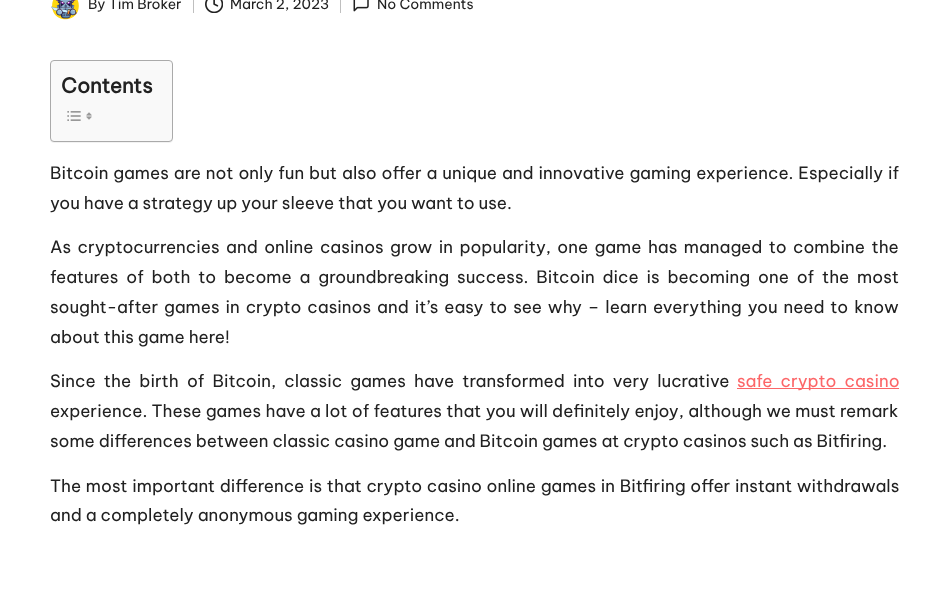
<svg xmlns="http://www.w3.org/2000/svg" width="949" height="590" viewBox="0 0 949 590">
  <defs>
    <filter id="blur1" x="-50%" y="-200%" width="200%" height="500%"><feGaussianBlur stdDeviation="0.5"/></filter>
  </defs>
  <rect width="100%" height="100%" fill="#ffffff"/>
  <image x="51" y="0" width="28" height="20" href="img1.png"/>
  <text x="88" y="9" font-family="Be Vietnam Pro" font-size="14" fill="#212121">By Tim Broker</text>
  <rect x="193" y="0" width="1" height="13" fill="#bfbfbf"/>
  <image x="205" y="0" width="18" height="13" href="img2.png"/>
  <text x="230" y="9" font-family="Be Vietnam Pro" font-size="14" fill="#212121">March 2, 2023</text>
  <rect x="340" y="0" width="1" height="13" fill="#bfbfbf"/>
  <image x="353" y="0" width="16" height="12" href="img3.png"/>
  <text x="377" y="9" font-family="Be Vietnam Pro" font-size="14" fill="#212121">No Comments</text>
  <rect x="50" y="61" width="123" height="82" rx="4" fill="#000000" fill-opacity="0.05" filter="url(#blur1)"/>
  <rect x="50.5" y="60.5" width="122" height="81" rx="3.5" fill="#f9f9f9" stroke="#aaaaaa"/>
  <text x="61" y="93" font-family="Be Vietnam Pro" font-size="20.5" font-weight="bold" fill="#212121">Contents</text>
  <image x="67" y="111" width="14" height="10" href="img4.png"/>
  <image x="86" y="112" width="6" height="8" href="img5.png"/>
  <text x="50" y="179" word-spacing="1" font-family="Be Vietnam Pro" font-size="17" fill="#212121">Bitcoin games are not only fun but also offer a unique and innovative gaming experience. Especially if</text>
  <text x="50" y="209" font-family="Be Vietnam Pro" font-size="17" fill="#212121">you have a strategy up your sleeve that you want to use.</text>
  <text x="50" y="253" word-spacing="2.5" font-family="Be Vietnam Pro" font-size="17" fill="#212121">As cryptocurrencies and online casinos grow in popularity, one game has managed to combine the</text>
  <text x="50" y="283" word-spacing="3.9" font-family="Be Vietnam Pro" font-size="17" fill="#212121">features of both to become a groundbreaking success. Bitcoin dice is becoming one of the most</text>
  <text x="50" y="313" word-spacing="2" font-family="Be Vietnam Pro" font-size="17" fill="#212121">sought-after games in crypto casinos and it’s easy to see why – learn everything you need to know</text>
  <text x="50" y="343" font-family="Be Vietnam Pro" font-size="17" fill="#212121">about this game here!</text>
  <text x="50" y="387" word-spacing="4.25" font-family="Be Vietnam Pro" font-size="17" fill="#212121">Since the birth of Bitcoin, classic games have transformed into very lucrative</text>
  <rect x="737" y="388" width="162" height="1" fill="#fc6668"/>
  <text x="737" y="387" word-spacing="4.25" font-family="Be Vietnam Pro" font-size="17" fill="#fc6668">safe crypto casino</text>
  <text x="50" y="417" word-spacing="0.4" font-family="Be Vietnam Pro" font-size="17" fill="#212121">experience. These games have a lot of features that you will definitely enjoy, although we must remark</text>
  <text x="50" y="447" font-family="Be Vietnam Pro" font-size="17" fill="#212121">some differences between classic casino game and Bitcoin games at crypto casinos such as Bitfiring.</text>
  <text x="50" y="492" word-spacing="0.75" font-family="Be Vietnam Pro" font-size="17" fill="#212121">The most important difference is that crypto casino online games in Bitfiring offer instant withdrawals</text>
  <text x="50" y="521" font-family="Be Vietnam Pro" font-size="17" fill="#212121">and a completely anonymous gaming experience.</text>
</svg>
